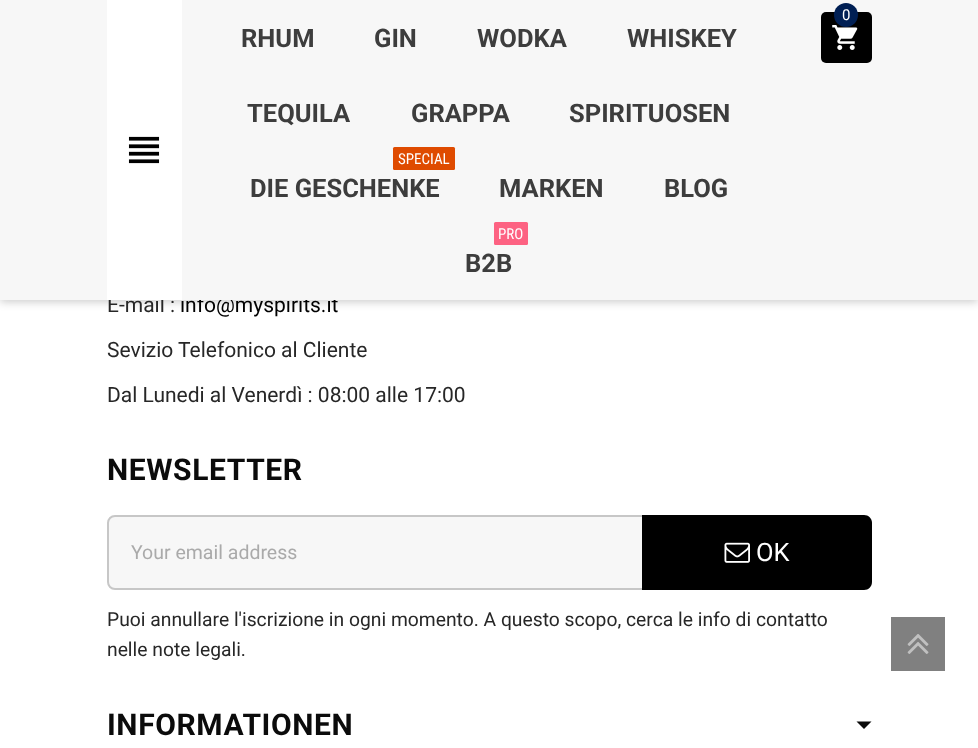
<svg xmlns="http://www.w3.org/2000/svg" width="978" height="748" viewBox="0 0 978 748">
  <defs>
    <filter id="blur1" x="-50%" y="-200%" width="200%" height="500%"><feGaussianBlur stdDeviation="4"/></filter>
  </defs>
  <rect width="100%" height="100%" fill="#ffffff"/>
  <rect x="0" y="2" width="978" height="300" fill="#000000" fill-opacity="0.2" filter="url(#blur1)"/>
  <text x="107" y="312" font-family="Roboto" font-size="21" fill="#272727">E-mail :</text>
  <text x="180" y="312" font-family="Roboto" font-size="21" fill="#000000">info@myspirits.it</text>
  <rect x="0" y="0" width="978" height="300" fill="#f7f7f7"/>
  <rect x="107" y="0" width="75" height="300" fill="#ffffff"/>
  <image x="128" y="136" width="32" height="28" href="img1.png"/>
  <rect x="821" y="12" width="51" height="51" rx="5" fill="#000000"/>
  <image x="832" y="25" width="26" height="25" href="img2.png"/>
  <circle cx="846" cy="15" r="12" fill="#001f54"/>
  <text x="842" y="20" font-family="Roboto" font-size="15" fill="#ffffff">0</text>
  <text x="241" y="47" font-family="Roboto" font-size="25.5" font-weight="bold" fill="#3d3d3d">RHUM</text>
  <text x="374" y="47" font-family="Roboto" font-size="25.5" font-weight="bold" fill="#3d3d3d">GIN</text>
  <text x="477" y="47" font-family="Roboto" font-size="25.5" font-weight="bold" fill="#3d3d3d">WODKA</text>
  <text x="627" y="47" font-family="Roboto" font-size="25.5" font-weight="bold" fill="#3d3d3d">WHISKEY</text>
  <text x="247" y="122" font-family="Roboto" font-size="25.5" font-weight="bold" fill="#3d3d3d">TEQUILA</text>
  <text x="411" y="122" font-family="Roboto" font-size="25.5" font-weight="bold" fill="#3d3d3d">GRAPPA</text>
  <text x="569" y="122" font-family="Roboto" font-size="25.5" font-weight="bold" fill="#3d3d3d">SPIRITUOSEN</text>
  <rect x="393" y="147" width="62" height="23" rx="1.5" fill="#df4b00"/>
  <text x="398" y="164" font-family="Roboto Condensed" font-size="15" fill="#ffffff">SPECIAL</text>
  <text x="250" y="197" font-family="Roboto" font-size="25.5" font-weight="bold" fill="#3d3d3d">DIE GESCHENKE</text>
  <text x="499" y="197" font-family="Roboto" font-size="25.5" font-weight="bold" fill="#3d3d3d">MARKEN</text>
  <text x="664" y="197" font-family="Roboto" font-size="25.5" font-weight="bold" fill="#3d3d3d">BLOG</text>
  <rect x="494" y="222" width="34" height="23" rx="1.5" fill="#fd6282"/>
  <text x="498" y="239" font-family="Roboto Condensed" font-size="15" fill="#ffffff">PRO</text>
  <text x="465" y="272" font-family="Roboto" font-size="25.5" font-weight="bold" fill="#3d3d3d">B2B</text>
  <text x="107" y="357" font-family="Roboto" font-size="21" fill="#272727">Sevizio Telefonico al Cliente</text>
  <text x="107" y="402" font-family="Roboto" font-size="21" fill="#272727">Dal Lunedi al Venerdì : 08:00 alle 17:00</text>
  <text x="107" y="480" font-family="Roboto" font-size="30" font-weight="bold" letter-spacing="0.6" fill="#0b0b0b">NEWSLETTER</text>
  <path d="M115 516H643V589H115C111 589 108 586 108 582V523C108 519 111 516 115 516Z" fill="#f7f7f7" stroke="#c7c7c7" stroke-width="2"/>
  <text x="131" y="559" font-family="Roboto" font-size="19.5" fill="#aaaaaa">Your email address</text>
  <path d="M642 515H864C868.5 515 872 518.5 872 523V582C872 586.5 868.5 590 864 590H642Z" fill="#000000"/>
  <image x="724" y="542" width="26" height="21" href="img3.png"/>
  <text x="756" y="561" font-family="Roboto" font-size="25.5" fill="#ffffff">OK</text>
  <text x="107" y="626" font-family="Roboto" font-size="19.3" fill="#272727">Puoi annullare l'iscrizione in ogni momento. A questo scopo, cerca le info di contatto</text>
  <text x="107" y="656" font-family="Roboto" font-size="19.3" fill="#272727">nelle note legali.</text>
  <text x="107" y="735" font-family="Roboto" font-size="30" font-weight="bold" letter-spacing="0.6" fill="#0b0b0b">INFORMATIONEN</text>
  <path d="M856.5 721.5H871.5L864 729Z" fill="#0b0b0b"/>
  <rect x="891" y="617" width="54" height="54" fill="#808080"/>
  <image x="907" y="634" width="22" height="20" href="img4.png"/>
</svg>
